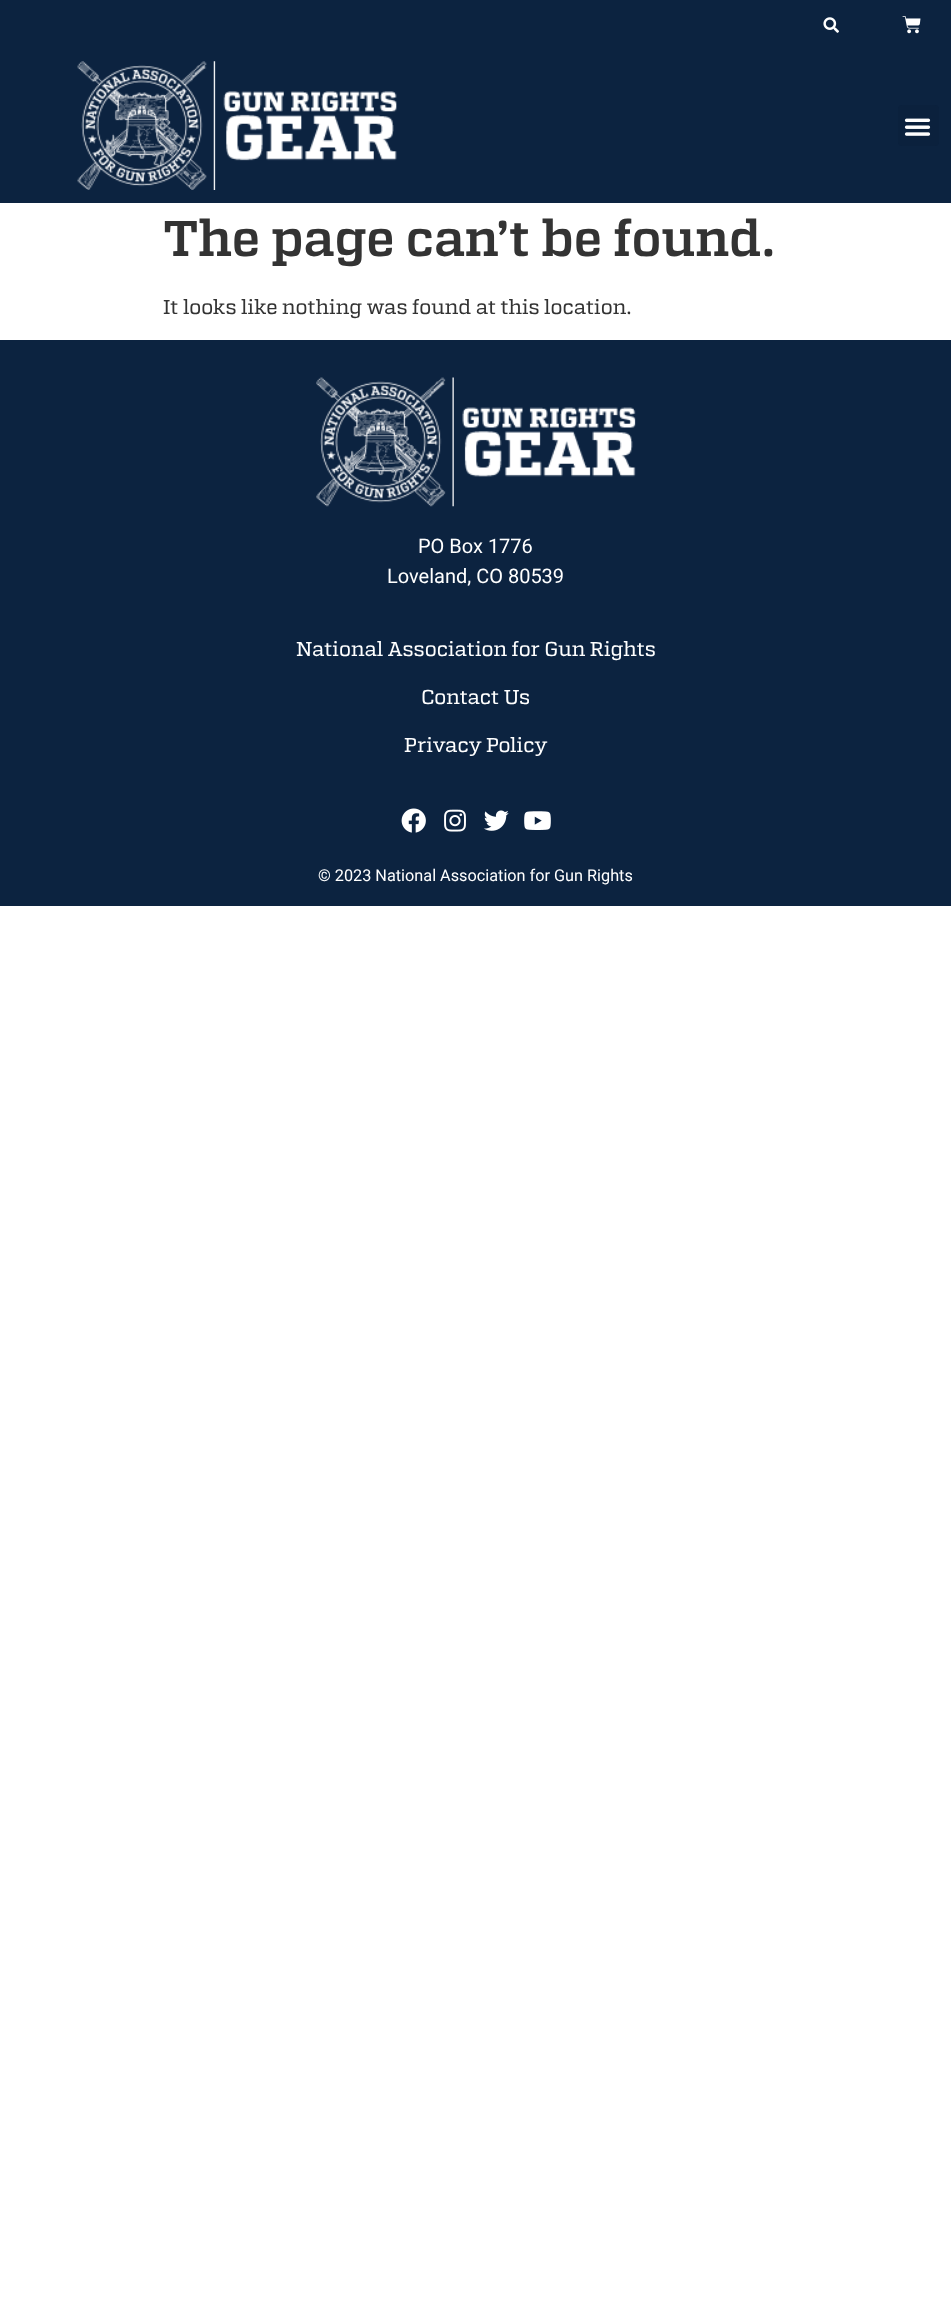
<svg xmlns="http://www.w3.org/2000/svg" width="951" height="2320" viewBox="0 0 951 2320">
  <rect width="100%" height="100%" fill="#ffffff"/>
  <rect x="0" y="0" width="951" height="203" fill="#0c2340"/>
  <image x="823" y="17" width="16" height="16" href="img1.png"/>
  <image x="902" y="16" width="19" height="18" href="img2.png"/>
  <image x="77" y="61" width="320" height="129" href="img3.png"/>
  <rect x="898" y="105" width="41" height="41" rx="4" fill="#0b213d"/>
  <image x="904" y="118" width="27" height="18" href="img4.png"/>
  <text x="163" y="256" font-family="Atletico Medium" font-size="50" font-weight="500" fill="#333333">The page can’t be found.</text>
  <text x="163" y="314" font-family="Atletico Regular" font-size="20" fill="#333333">It looks like nothing was found at this location.</text>
  <rect x="0" y="340" width="951" height="566" fill="#0c2340"/>
  <image x="316" y="377" width="320" height="130" href="img5.png"/>
  <text x="418" y="553" font-family="Roboto" font-size="20" fill="#ffffff">PO Box 1776</text>
  <text x="387" y="583" font-family="Roboto" font-size="20" fill="#ffffff">Loveland, CO 80539</text>
  <text x="296" y="656" font-family="Atletico Regular" font-size="20" fill="#ffffff">National Association for Gun Rights</text>
  <text x="421" y="704" font-family="Atletico Regular" font-size="20" fill="#ffffff">Contact Us</text>
  <text x="404" y="752" font-family="Atletico Regular" font-size="20" fill="#ffffff">Privacy Policy</text>
  <image x="401" y="808" width="25" height="25" href="img6.png"/>
  <image x="444" y="809" width="22" height="23" href="img7.png"/>
  <image x="483" y="810" width="26" height="21" href="img8.png"/>
  <image x="524" y="811" width="27" height="19" href="img9.png"/>
  <text x="318" y="881" font-family="Roboto" font-size="16.25" fill="#ffffff">© 2023 National Association for Gun Rights</text>
</svg>
